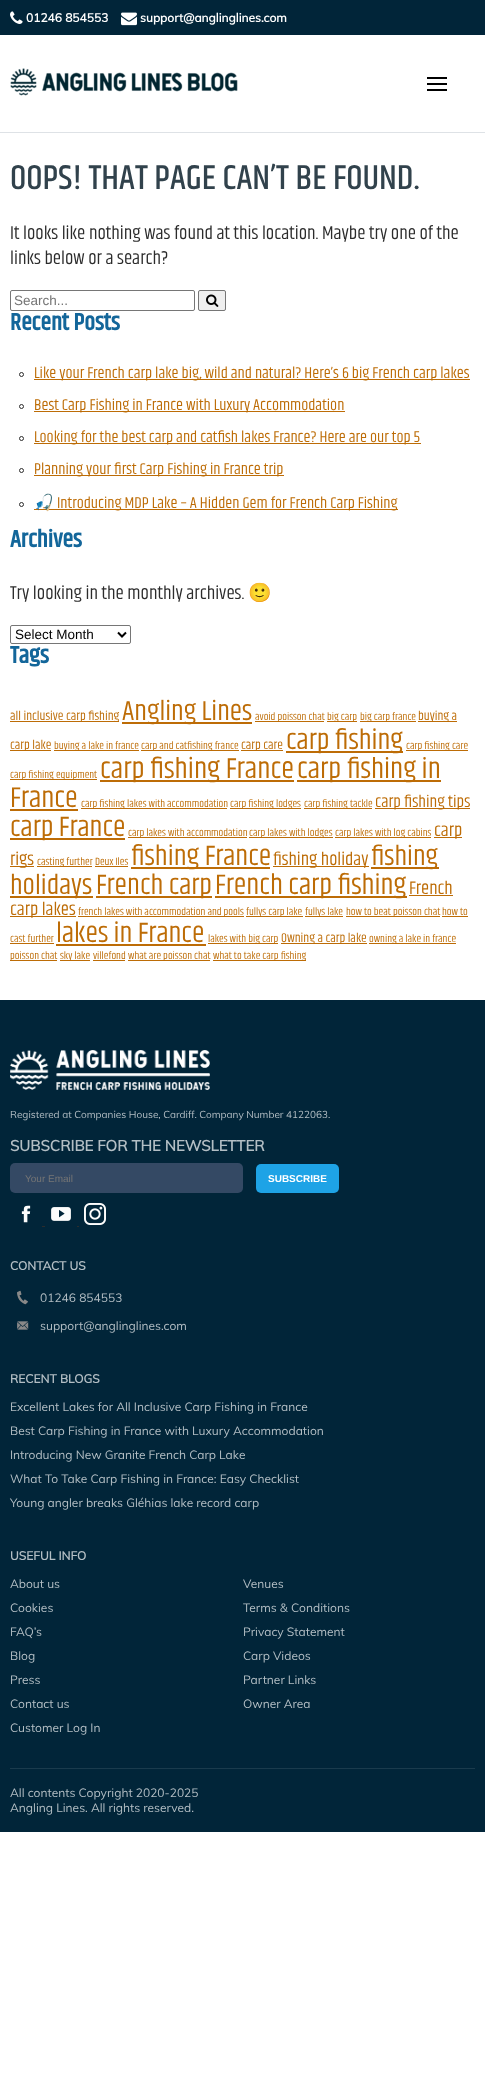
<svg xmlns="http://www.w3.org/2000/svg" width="485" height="2085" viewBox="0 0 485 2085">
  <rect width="100%" height="100%" fill="#ffffff"/>
  <rect x="0" y="0" width="485" height="35" fill="#012539"/>
  <image x="10" y="11" width="13" height="13" href="img1.png"/>
  <text x="26" y="22" font-family="Muli" font-size="12" font-weight="bold" fill="#ffffff">01246 854553</text>
  <image x="121" y="12" width="16" height="14" href="img2.png"/>
  <text x="140" y="22" font-family="Muli" font-size="12" font-weight="bold" fill="#ffffff">support@anglinglines.com</text>
  <rect x="0" y="132" width="485" height="1" fill="#dee2e6"/>
  <image x="10" y="68" width="228" height="28" href="img3.png"/>
  <image x="427" y="77" width="20" height="14" href="img4.png"/>
  <text x="10" y="189" font-family="Khand" font-size="35" font-weight="500" fill="#31424c">OOPS! THAT PAGE CAN’T BE FOUND.</text>
  <text x="10" y="239" font-family="Khand" font-size="18.9" fill="#2c2c2c">It looks like nothing was found at this location. Maybe try one of the</text>
  <text x="10" y="264" font-family="Khand" font-size="18.9" fill="#2c2c2c">links below or a search?</text>
  <rect x="10.5" y="290.5" width="184" height="20" rx="1.5" fill="none" stroke="#767676"/>
  <text x="14" y="305" font-family="Liberation Sans" font-size="13.5" fill="#757575">Search...</text>
  <rect x="198.5" y="290.5" width="27" height="20" rx="1.5" fill="#efefef" stroke="#767676"/>
  <image x="206" y="294" width="13" height="13" href="img5.png"/>
  <text x="10" y="330" font-family="Khand" font-size="24" font-weight="bold" fill="#13669a">Recent Posts</text>
  <circle cx="21.5" cy="374.5" r="2" fill="none" stroke="#2c2c2c"/>
  <rect x="34" y="379" width="436" height="1" fill="#bd6c06"/>
  <text x="34" y="378" font-family="Khand" font-size="15.95" fill="#bd6c06">Like your French carp lake big, wild and natural? Here’s 6 big French carp lakes</text>
  <circle cx="21.5" cy="406.5" r="2" fill="none" stroke="#2c2c2c"/>
  <rect x="34" y="411" width="311" height="1" fill="#bd6c06"/>
  <text x="34" y="410" font-family="Khand" font-size="15.95" fill="#bd6c06">Best Carp Fishing in France with Luxury Accommodation</text>
  <circle cx="21.5" cy="438.5" r="2" fill="none" stroke="#2c2c2c"/>
  <rect x="34" y="443" width="387" height="1" fill="#bd6c06"/>
  <text x="34" y="442" font-family="Khand" font-size="15.95" fill="#bd6c06">Looking for the best carp and catfish lakes France? Here are our top 5</text>
  <circle cx="21.5" cy="470.5" r="2" fill="none" stroke="#2c2c2c"/>
  <rect x="34" y="475" width="250" height="1" fill="#bd6c06"/>
  <text x="34" y="474" font-family="Khand" font-size="15.95" fill="#bd6c06">Planning your first Carp Fishing in France trip</text>
  <circle cx="21.5" cy="504.5" r="2" fill="none" stroke="#2c2c2c"/>
  <rect x="34" y="509" width="364" height="1" fill="#bd6c06"/>
  <text x="34" y="508" font-family="Noto Color Emoji" font-size="15.95" fill="#bd6c06">🎣</text>
  <text x="57" y="508" font-family="Khand" font-size="15.95" fill="#bd6c06">Introducing MDP Lake – A Hidden Gem for French Carp Fishing</text>
  <text x="10" y="547" font-family="Khand" font-size="24" font-weight="bold" fill="#13669a">Archives</text>
  <text x="10" y="599" font-family="Khand" font-size="18.9" fill="#2c2c2c">Try looking in the monthly archives.</text>
  <text x="248" y="599" font-family="Noto Color Emoji" font-size="18.9" fill="#2c2c2c">🙂</text>
  <rect x="10.5" y="625.5" width="120" height="18" rx="1.5" fill="none" stroke="#767676"/>
  <path d="M118 632.5L122 636.5L126 632.5" fill="none" stroke="#000000" stroke-width="2"/>
  <text x="15" y="639" font-family="Liberation Sans" font-size="13.5" fill="#000000">Select Month</text>
  <text x="10" y="663" font-family="Khand" font-size="24" font-weight="bold" fill="#13669a">Tags</text>
  <rect x="10" y="721" width="109" height="1" fill="#bd6c06"/>
  <text x="10" y="720" font-family="Khand" font-size="13" fill="#bd6c06">all inclusive carp fishing</text>
  <rect x="122" y="722" width="130" height="2" fill="#bd6c06"/>
  <text x="122" y="720" font-family="Khand" font-size="28" fill="#bd6c06">Angling Lines</text>
  <rect x="255" y="721" width="69" height="1" fill="#bd6c06"/>
  <text x="255" y="720" font-family="Khand" font-size="10.7" fill="#bd6c06">avoid poisson chat</text>
  <rect x="327" y="721" width="30" height="1" fill="#bd6c06"/>
  <text x="327" y="720" font-family="Khand" font-size="10.7" fill="#bd6c06">big carp</text>
  <rect x="360" y="721" width="56" height="1" fill="#bd6c06"/>
  <text x="360" y="720" font-family="Khand" font-size="10.7" fill="#bd6c06">big carp france</text>
  <rect x="418" y="721" width="39" height="1" fill="#bd6c06"/>
  <text x="418" y="720" font-family="Khand" font-size="13" fill="#bd6c06">buying a</text>
  <rect x="10" y="750" width="41" height="1" fill="#bd6c06"/>
  <text x="10" y="749" font-family="Khand" font-size="13" fill="#bd6c06">carp lake</text>
  <rect x="54" y="750" width="85" height="1" fill="#bd6c06"/>
  <text x="54" y="749" font-family="Khand" font-size="10.7" fill="#bd6c06">buying a lake in france</text>
  <rect x="141" y="750" width="98" height="1" fill="#bd6c06"/>
  <text x="141" y="749" font-family="Khand" font-size="10.7" fill="#bd6c06">carp and catfishing france</text>
  <rect x="241" y="750" width="42" height="1" fill="#bd6c06"/>
  <text x="241" y="749" font-family="Khand" font-size="13" fill="#bd6c06">carp care</text>
  <rect x="286" y="751" width="117" height="2" fill="#bd6c06"/>
  <text x="286" y="749" font-family="Khand" font-size="28.5" fill="#bd6c06">carp fishing</text>
  <rect x="406" y="750" width="62" height="1" fill="#bd6c06"/>
  <text x="406" y="749" font-family="Khand" font-size="10.7" fill="#bd6c06">carp fishing care</text>
  <rect x="10" y="779" width="87" height="1" fill="#bd6c06"/>
  <text x="10" y="778" font-family="Khand" font-size="10.7" fill="#bd6c06">carp fishing equipment</text>
  <rect x="100" y="780" width="194" height="2" fill="#bd6c06"/>
  <text x="100" y="778" font-family="Khand" font-size="29.25" fill="#bd6c06">carp fishing France</text>
  <rect x="297" y="780" width="144" height="2" fill="#bd6c06"/>
  <text x="297" y="778" font-family="Khand" font-size="29" fill="#bd6c06">carp fishing in</text>
  <text x="10" y="807" font-family="Khand" font-size="29" fill="#bd6c06">France</text>
  <rect x="10" y="809" width="68" height="2" fill="#bd6c06"/>
  <rect x="81" y="808" width="146" height="1" fill="#bd6c06"/>
  <text x="81" y="807" font-family="Khand" font-size="10.7" fill="#bd6c06">carp fishing lakes with accommodation</text>
  <rect x="230" y="808" width="71" height="1" fill="#bd6c06"/>
  <text x="230" y="807" font-family="Khand" font-size="10.7" fill="#bd6c06">carp fishing lodges</text>
  <rect x="304" y="808" width="68" height="1" fill="#bd6c06"/>
  <text x="304" y="807" font-family="Khand" font-size="10.7" fill="#bd6c06">carp fishing tackle</text>
  <rect x="375" y="808" width="95" height="1" fill="#bd6c06"/>
  <text x="375" y="807" font-family="Khand" font-size="17" fill="#bd6c06">carp fishing tips</text>
  <rect x="10" y="838" width="115" height="2" fill="#bd6c06"/>
  <text x="10" y="836" font-family="Khand" font-size="28.5" fill="#bd6c06">carp France</text>
  <rect x="128" y="837" width="119" height="1" fill="#bd6c06"/>
  <text x="128" y="836" font-family="Khand" font-size="10.7" fill="#bd6c06">carp lakes with accommodation</text>
  <rect x="249" y="837" width="84" height="1" fill="#bd6c06"/>
  <text x="249" y="836" font-family="Khand" font-size="10.7" fill="#bd6c06">carp lakes with lodges</text>
  <rect x="335" y="837" width="96" height="1" fill="#bd6c06"/>
  <text x="335" y="836" font-family="Khand" font-size="10.7" fill="#bd6c06">carp lakes with log cabins</text>
  <rect x="434" y="837" width="28" height="1" fill="#bd6c06"/>
  <text x="434" y="836" font-family="Khand" font-size="18.5" fill="#bd6c06">carp</text>
  <rect x="10" y="866" width="24" height="1" fill="#bd6c06"/>
  <text x="10" y="865" font-family="Khand" font-size="18.5" fill="#bd6c06">rigs</text>
  <rect x="37" y="866" width="55" height="1" fill="#bd6c06"/>
  <text x="37" y="865" font-family="Khand" font-size="10.7" fill="#bd6c06">casting further</text>
  <text x="95" y="865" font-family="Khand" font-size="10.7" fill="#bd6c06">Deux Iles</text>
  <rect x="95" y="866" width="33" height="1" fill="#bd6c06"/>
  <rect x="131" y="867" width="139" height="2" fill="#bd6c06"/>
  <text x="131" y="865" font-family="Khand" font-size="28.5" fill="#bd6c06">fishing France</text>
  <rect x="273" y="866" width="96" height="1" fill="#bd6c06"/>
  <text x="273" y="865" font-family="Khand" font-size="18.5" fill="#bd6c06">fishing holiday</text>
  <rect x="371" y="867" width="68" height="2" fill="#bd6c06"/>
  <text x="371" y="865" font-family="Khand" font-size="28" fill="#bd6c06">fishing</text>
  <rect x="10" y="896" width="83" height="2" fill="#bd6c06"/>
  <text x="10" y="894" font-family="Khand" font-size="28" fill="#bd6c06">holidays</text>
  <rect x="96" y="896" width="116" height="2" fill="#bd6c06"/>
  <text x="96" y="894" font-family="Khand" font-size="28.5" fill="#bd6c06">French carp</text>
  <rect x="215" y="896" width="192" height="2" fill="#bd6c06"/>
  <text x="215" y="894" font-family="Khand" font-size="28.75" fill="#bd6c06">French carp fishing</text>
  <text x="409" y="894" font-family="Khand" font-size="18.5" fill="#bd6c06">French</text>
  <rect x="409" y="895" width="44" height="1" fill="#bd6c06"/>
  <rect x="10" y="916" width="66" height="1" fill="#bd6c06"/>
  <text x="10" y="915" font-family="Khand" font-size="18.5" fill="#bd6c06">carp lakes</text>
  <rect x="78" y="916" width="166" height="1" fill="#bd6c06"/>
  <text x="78" y="915" font-family="Khand" font-size="10.7" fill="#bd6c06">french lakes with accommodation and pools</text>
  <rect x="246" y="916" width="57" height="1" fill="#bd6c06"/>
  <text x="246" y="915" font-family="Khand" font-size="10.7" fill="#bd6c06">fullys carp lake</text>
  <rect x="305" y="916" width="38" height="1" fill="#bd6c06"/>
  <text x="305" y="915" font-family="Khand" font-size="10.7" fill="#bd6c06">fullys lake</text>
  <rect x="346" y="916" width="94" height="1" fill="#bd6c06"/>
  <text x="346" y="915" font-family="Khand" font-size="10.7" fill="#bd6c06">how to beat poisson chat</text>
  <text x="442" y="915" font-family="Khand" font-size="10.7" fill="#bd6c06">how to</text>
  <rect x="442" y="916" width="26" height="1" fill="#bd6c06"/>
  <text x="10" y="942" font-family="Khand" font-size="10.7" fill="#bd6c06">cast further</text>
  <rect x="10" y="943" width="44" height="1" fill="#bd6c06"/>
  <text x="56" y="942" font-family="Khand" font-size="28.5" fill="#bd6c06">lakes in France</text>
  <rect x="56" y="944" width="150" height="2" fill="#bd6c06"/>
  <rect x="208" y="943" width="70" height="1" fill="#bd6c06"/>
  <text x="208" y="942" font-family="Khand" font-size="10.7" fill="#bd6c06">lakes with big carp</text>
  <rect x="281" y="943" width="86" height="1" fill="#bd6c06"/>
  <text x="281" y="942" font-family="Khand" font-size="13" fill="#bd6c06">Owning a carp lake</text>
  <rect x="369" y="943" width="87" height="1" fill="#bd6c06"/>
  <text x="369" y="942" font-family="Khand" font-size="10.7" fill="#bd6c06">owning a lake in france</text>
  <rect x="10" y="960" width="47" height="1" fill="#bd6c06"/>
  <text x="10" y="959" font-family="Khand" font-size="10.7" fill="#bd6c06">poisson chat</text>
  <rect x="60" y="960" width="30" height="1" fill="#bd6c06"/>
  <text x="60" y="959" font-family="Khand" font-size="10.7" fill="#bd6c06">sky lake</text>
  <text x="93" y="959" font-family="Khand" font-size="10.7" fill="#bd6c06">villefond</text>
  <rect x="93" y="960" width="32" height="1" fill="#bd6c06"/>
  <rect x="128" y="960" width="82" height="1" fill="#bd6c06"/>
  <text x="128" y="959" font-family="Khand" font-size="10.7" fill="#bd6c06">what are poisson chat</text>
  <rect x="213" y="960" width="93" height="1" fill="#bd6c06"/>
  <text x="213" y="959" font-family="Khand" font-size="10.7" fill="#bd6c06">what to take carp fishing</text>
  <rect x="0" y="1000" width="485" height="832" fill="#012539"/>
  <image x="10" y="1050" width="200" height="40" href="img6.png"/>
  <text x="10" y="1118" font-family="Muli" font-size="10" fill="#b3bec4">Registered at Companies House, Cardiff. Company Number 4122063.</text>
  <text x="10" y="1151" font-family="Muli" font-size="15" font-weight="bold" fill="#b3bec4">SUBSCRIBE FOR THE NEWSLETTER</text>
  <rect x="10" y="1163" width="233" height="30" rx="5" fill="#344964"/>
  <text x="25" y="1182" font-family="Liberation Sans" font-size="10" fill="#757575">Your Email</text>
  <rect x="256" y="1164" width="83" height="29" rx="5" fill="#1ea3e6"/>
  <text x="268" y="1182" font-family="Liberation Sans" font-size="10" font-weight="bold" fill="#ffffff">SUBSCRIBE</text>
  <image x="21" y="1205" width="10" height="18" href="img7.png"/>
  <image x="51" y="1207" width="20" height="14" href="img8.png"/>
  <image x="84" y="1203" width="22" height="22" href="img9.png"/>
  <rect x="42" y="1226" width="3" height="1" fill="#2c2c2c"/>
  <rect x="77" y="1226" width="2" height="1" fill="#2c2c2c"/>
  <text x="10" y="1270" font-family="Muli" font-size="12" font-weight="bold" fill="#b3bec4">CONTACT US</text>
  <image x="17" y="1290" width="11" height="15" href="img10.png"/>
  <text x="40" y="1302" font-family="Muli" font-size="12" fill="#b3bec4">01246 854553</text>
  <image x="17" y="1321" width="12" height="9" href="img11.png"/>
  <text x="40" y="1330" font-family="Muli" font-size="12" fill="#b3bec4">support@anglinglines.com</text>
  <text x="10" y="1383" font-family="Muli" font-size="12" font-weight="bold" fill="#b3bec4">RECENT BLOGS</text>
  <text x="10" y="1411" font-family="Muli" font-size="12" fill="#b3bec4">Excellent Lakes for All Inclusive Carp Fishing in France</text>
  <text x="10" y="1435" font-family="Muli" font-size="12" fill="#b3bec4">Best Carp Fishing in France with Luxury Accommodation</text>
  <text x="10" y="1459" font-family="Muli" font-size="12" fill="#b3bec4">Introducing New Granite French Carp Lake</text>
  <text x="10" y="1483" font-family="Muli" font-size="12" fill="#b3bec4">What To Take Carp Fishing in France: Easy Checklist</text>
  <text x="10" y="1507" font-family="Muli" font-size="12" fill="#b3bec4">Young angler breaks Gléhias lake record carp</text>
  <text x="10" y="1560" font-family="Muli" font-size="12" font-weight="bold" fill="#b3bec4">USEFUL INFO</text>
  <text x="10" y="1588" font-family="Muli" font-size="12" fill="#b3bec4">About us</text>
  <text x="243" y="1588" font-family="Muli" font-size="12" fill="#b3bec4">Venues</text>
  <text x="10" y="1612" font-family="Muli" font-size="12" fill="#b3bec4">Cookies</text>
  <text x="243" y="1612" font-family="Muli" font-size="12" fill="#b3bec4">Terms &amp; Conditions</text>
  <text x="10" y="1636" font-family="Muli" font-size="12" fill="#b3bec4">FAQ’s</text>
  <text x="243" y="1636" font-family="Muli" font-size="12" fill="#b3bec4">Privacy Statement</text>
  <text x="10" y="1660" font-family="Muli" font-size="12" fill="#b3bec4">Blog</text>
  <text x="243" y="1660" font-family="Muli" font-size="12" fill="#b3bec4">Carp Videos</text>
  <text x="10" y="1684" font-family="Muli" font-size="12" fill="#b3bec4">Press</text>
  <text x="243" y="1684" font-family="Muli" font-size="12" fill="#b3bec4">Partner Links</text>
  <text x="10" y="1708" font-family="Muli" font-size="12" fill="#b3bec4">Contact us</text>
  <text x="243" y="1708" font-family="Muli" font-size="12" fill="#b3bec4">Owner Area</text>
  <text x="10" y="1732" font-family="Muli" font-size="12" fill="#b3bec4">Customer Log In</text>
  <rect x="10" y="1768" width="465" height="1" fill="#1a3b4d"/>
  <text x="10" y="1797" font-family="Muli" font-size="12" fill="#b3bec4">All contents Copyright 2020-2025</text>
  <text x="10" y="1812" font-family="Muli" font-size="12" fill="#b3bec4">Angling Lines. All rights reserved.</text>
</svg>
